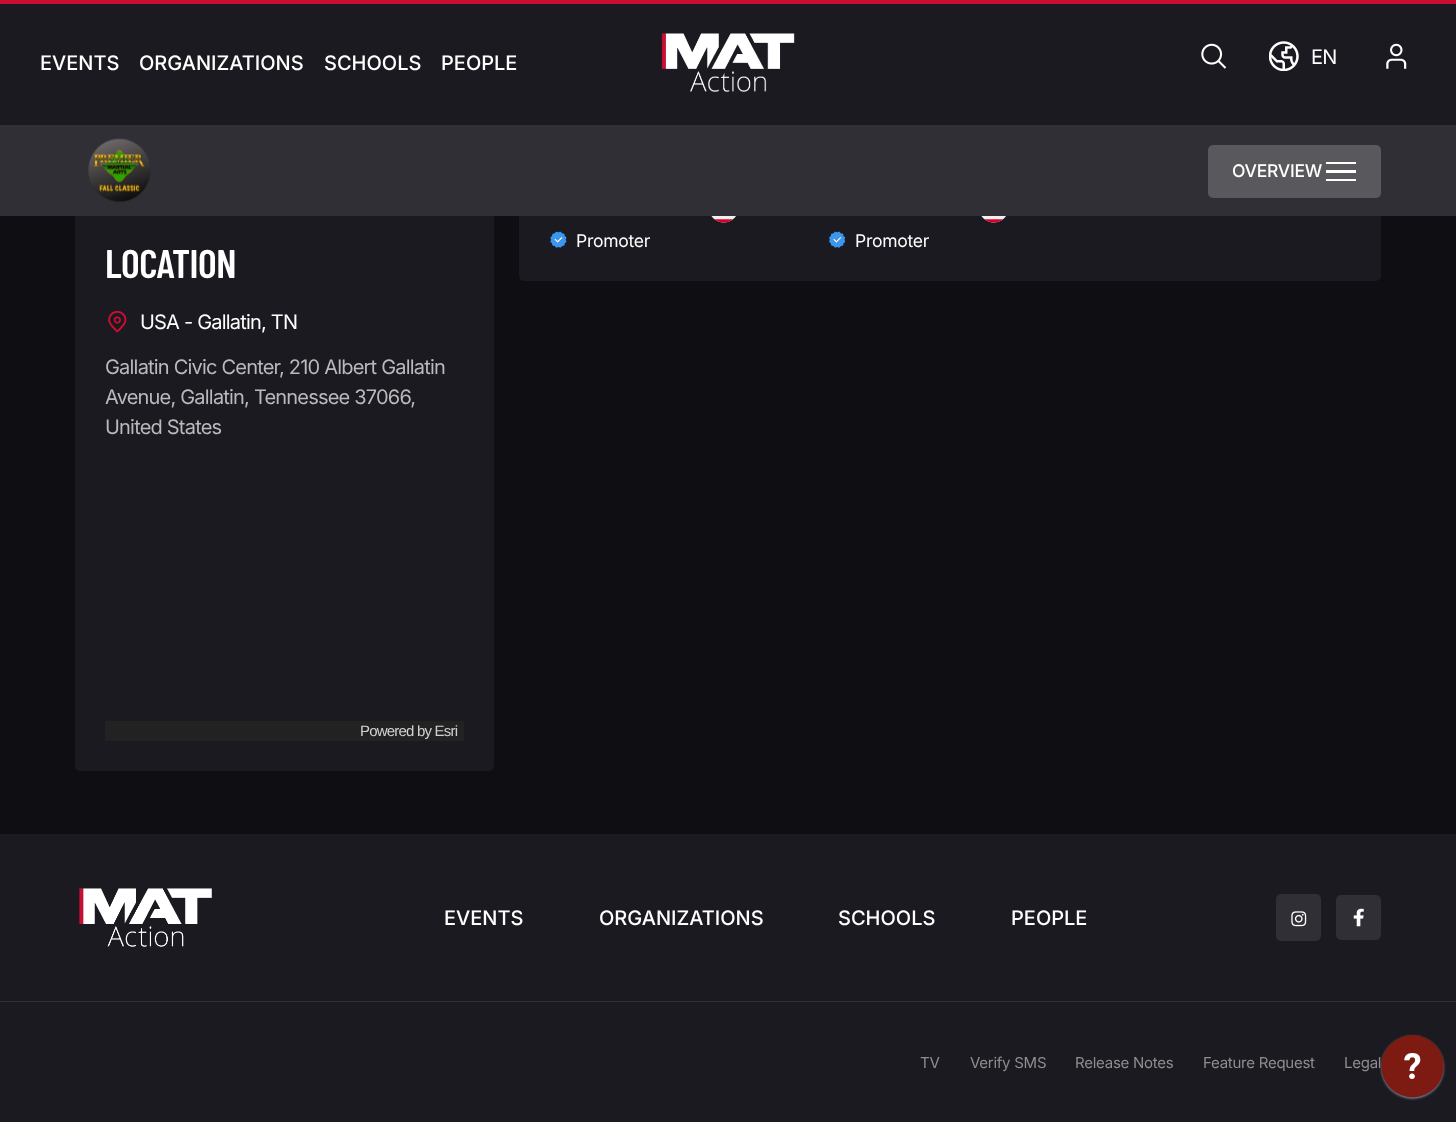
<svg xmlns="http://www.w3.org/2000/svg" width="1456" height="1122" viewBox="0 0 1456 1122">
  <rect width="100%" height="100%" fill="#0f0f13"/>
  <rect x="519" y="-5" width="862" height="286" rx="5" fill="#1a1a20"/>
  <rect x="0" y="4" width="1456" height="121" fill="#1a1a20"/>
  <rect x="0" y="0" width="1456" height="4" fill="#c90d33"/>
  <text x="40" y="70" font-family="Inter" font-size="20" font-weight="500" fill="#ffffff">EVENTS</text>
  <text x="139" y="70" font-family="Inter" font-size="20" font-weight="500" fill="#ffffff">ORGANIZATIONS</text>
  <text x="324" y="70" font-family="Inter" font-size="20" font-weight="500" fill="#ffffff">SCHOOLS</text>
  <text x="441" y="70" font-family="Inter" font-size="20" font-weight="500" fill="#ffffff">PEOPLE</text>
  <image x="661" y="33" width="134" height="59" href="img1.png"/>
  <image x="1201" y="43" width="26" height="26" href="img2.png"/>
  <image x="1269" y="41" width="30" height="30" href="img3.png"/>
  <text x="1311" y="64" font-family="Inter" font-size="20" letter-spacing="-0.8" fill="#ffffff">EN</text>
  <image x="1386" y="43" width="21" height="26" href="img4.png"/>
  <rect x="75" y="206" width="419" height="565" rx="5" fill="#1a1a20"/>
  <rect x="0" y="125" width="1456" height="91" fill="#2f2f35"/>
  <image x="88" y="138" width="63" height="64" href="img5.png"/>
  <rect x="1208" y="145" width="173" height="53" rx="5" fill="#59595d"/>
  <text x="1232" y="177" font-family="Inter" font-size="17.5" font-weight="500" letter-spacing="-0.25" fill="#ffffff">OVERVIEW</text>
  <rect x="1326" y="170" width="30" height="3" fill="#ffffff"/>
  <rect x="1326" y="162" width="30" height="2" fill="#ffffff"/>
  <rect x="1326" y="179" width="30" height="2" fill="#ffffff"/>
  <image x="711" y="216" width="25" height="7" href="img6.png"/>
  <image x="550" y="231" width="17" height="17" href="img7.png"/>
  <text x="576" y="247" font-family="Inter" font-size="17.5" letter-spacing="-0.25" fill="#ffffff">Promoter</text>
  <image x="981" y="216" width="25" height="7" href="img6.png"/>
  <image x="829" y="231" width="17" height="17" href="img8.png"/>
  <text x="855" y="247" font-family="Inter" font-size="17.5" letter-spacing="-0.25" fill="#ffffff">Promoter</text>
  <text x="105" y="278" font-family="Barlow Condensed" font-size="40" font-weight="600" letter-spacing="-0.5" fill="#ffffff">LOCATION</text>
  <image x="108" y="310" width="19" height="23" href="img9.png"/>
  <text x="140" y="329" font-family="Inter" font-size="20" letter-spacing="-0.8" fill="#ffffff">USA - Gallatin, TN</text>
  <text x="105" y="374" font-family="Inter" font-size="20" letter-spacing="-0.8" fill="#bababc">Gallatin Civic Center, 210 Albert Gallatin</text>
  <text x="105" y="404" font-family="Inter" font-size="20" letter-spacing="-0.8" fill="#bababc">Avenue, Gallatin, Tennessee 37066,</text>
  <text x="105" y="434" font-family="Inter" font-size="20" letter-spacing="-0.8" fill="#bababc">United States</text>
  <rect x="105" y="721" width="359" height="20" fill="#222223"/>
  <text x="360" y="736" font-family="Liberation Sans" font-size="15" letter-spacing="-0.8" fill="#d1d1d1">Powered by Esri</text>
  <rect x="0" y="834" width="1456" height="288" fill="#1a1a20"/>
  <image x="79" y="888" width="133" height="59" href="img10.png"/>
  <text x="444" y="925" font-family="Inter" font-size="20" font-weight="500" fill="#ffffff">EVENTS</text>
  <text x="599" y="925" font-family="Inter" font-size="20" font-weight="500" fill="#ffffff">ORGANIZATIONS</text>
  <text x="838" y="925" font-family="Inter" font-size="20" font-weight="500" fill="#ffffff">SCHOOLS</text>
  <text x="1011" y="925" font-family="Inter" font-size="20" font-weight="500" fill="#ffffff">PEOPLE</text>
  <rect x="1276" y="894" width="45" height="47" rx="5" fill="#2f2f35"/>
  <image x="1291" y="911" width="16" height="16" href="img11.png"/>
  <rect x="1336" y="895" width="45" height="45" rx="5" fill="#2f2f35"/>
  <image x="1353" y="908" width="11" height="19" href="img12.png"/>
  <rect x="0" y="1001" width="1456" height="1" fill="#2f2f35"/>
  <text x="920" y="1068" font-family="Inter" font-size="15" letter-spacing="-0.25" fill="#8e8e8f">TV</text>
  <text x="970" y="1068" font-family="Inter" font-size="15" letter-spacing="-0.25" fill="#8e8e8f">Verify SMS</text>
  <text x="1075" y="1068" font-family="Inter" font-size="15" letter-spacing="-0.25" fill="#8e8e8f">Release Notes</text>
  <text x="1203" y="1068" font-family="Inter" font-size="15" letter-spacing="-0.25" fill="#8e8e8f">Feature Request</text>
  <text x="1344" y="1068" font-family="Inter" font-size="15" letter-spacing="-0.25" fill="#8e8e8f">Legal</text>
  <image x="1379" y="1034" width="67" height="67" href="img13.png"/>
</svg>
